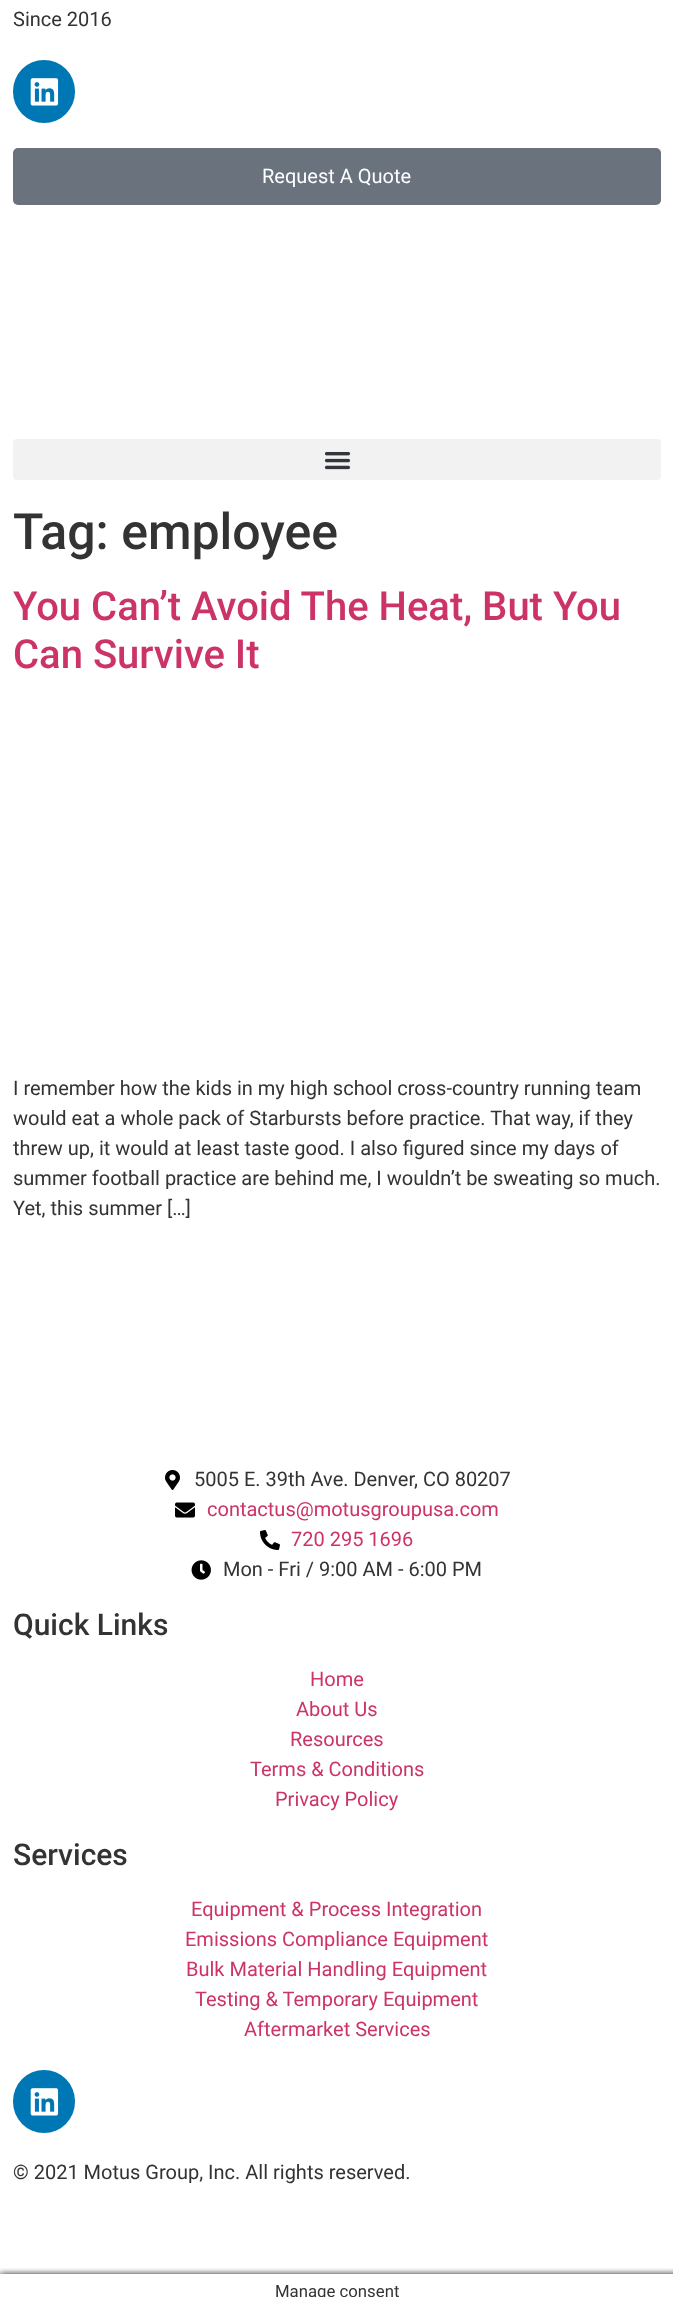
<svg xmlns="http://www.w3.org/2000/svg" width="673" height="2297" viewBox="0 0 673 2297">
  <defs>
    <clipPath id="clip1"><rect x="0" y="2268" width="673" height="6"/></clipPath>
    <filter id="blur1" x="-50%" y="-200%" width="200%" height="500%"><feGaussianBlur stdDeviation="3"/></filter>
  </defs>
  <rect width="100%" height="100%" fill="#ffffff"/>
  <text x="13" y="26" font-family="Roboto" font-size="20" fill="#333333">Since 2016</text>
  <rect x="13" y="60" width="62" height="63" rx="31" fill="#0077b5"/>
  <image x="30" y="78" width="29" height="28" href="img1.png"/>
  <rect x="13" y="148" width="648" height="57" rx="5" fill="#69727d"/>
  <text x="262" y="183" font-family="Roboto" font-size="20" fill="#ffffff">Request A Quote</text>
  <rect x="13" y="439" width="648" height="41" rx="4" fill="#f2f2f2"/>
  <image x="324" y="452" width="27" height="18" href="img2.png"/>
  <text x="13" y="549" font-family="Roboto" font-size="50" font-weight="500" fill="#333333">Tag: employee</text>
  <text x="13" y="620" font-family="Roboto" font-size="40" font-weight="500" fill="#cc3366">You Can’t Avoid The Heat, But You</text>
  <text x="13" y="668" font-family="Roboto" font-size="40" font-weight="500" fill="#cc3366">Can Survive It</text>
  <text x="13" y="1095" font-family="Roboto" font-size="20" fill="#333333">I remember how the kids in my high school cross-country running team</text>
  <text x="13" y="1125" font-family="Roboto" font-size="20" fill="#333333">would eat a whole pack of Starbursts before practice. That way, if they</text>
  <text x="13" y="1155" font-family="Roboto" font-size="20" fill="#333333">threw up, it would at least taste good. I also figured since my days of</text>
  <text x="13" y="1185" font-family="Roboto" font-size="20" fill="#333333">summer football practice are behind me, I wouldn’t be sweating so much.</text>
  <text x="13" y="1215" font-family="Roboto" font-size="20" fill="#333333">Yet, this summer […]</text>
  <image x="165" y="1470" width="15" height="20" href="img3.png"/>
  <text x="194" y="1486" font-family="Roboto" font-size="20" fill="#333333">5005 E. 39th Ave. Denver, CO 80207</text>
  <image x="175" y="1502" width="20" height="16" href="img4.png"/>
  <text x="207" y="1516" font-family="Roboto" font-size="20" fill="#cc3366">contactus@motusgroupusa.com</text>
  <image x="260" y="1530" width="20" height="20" href="img5.png"/>
  <text x="291" y="1546" font-family="Roboto" font-size="20" fill="#cc3366">720 295 1696</text>
  <image x="191" y="1560" width="20" height="20" href="img6.png"/>
  <text x="223" y="1576" font-family="Roboto" font-size="20" fill="#333333">Mon - Fri / 9:00 AM - 6:00 PM</text>
  <text x="13" y="1635" font-family="Roboto" font-size="30" font-weight="500" fill="#333333">Quick Links</text>
  <text x="310" y="1686" font-family="Roboto" font-size="20" fill="#cc3366">Home</text>
  <text x="296" y="1716" font-family="Roboto" font-size="20" fill="#cc3366">About Us</text>
  <text x="290" y="1746" font-family="Roboto" font-size="20" fill="#cc3366">Resources</text>
  <text x="250" y="1776" font-family="Roboto" font-size="20" fill="#cc3366">Terms &amp; Conditions</text>
  <text x="275" y="1806" font-family="Roboto" font-size="20" fill="#cc3366">Privacy Policy</text>
  <text x="13" y="1865" font-family="Roboto" font-size="30" font-weight="500" fill="#333333">Services</text>
  <text x="191" y="1916" font-family="Roboto" font-size="20" fill="#cc3366">Equipment &amp; Process Integration</text>
  <text x="185" y="1946" font-family="Roboto" font-size="20" fill="#cc3366">Emissions Compliance Equipment</text>
  <text x="186" y="1976" font-family="Roboto" font-size="20" fill="#cc3366">Bulk Material Handling Equipment</text>
  <text x="195" y="2006" font-family="Roboto" font-size="20" fill="#cc3366">Testing &amp; Temporary Equipment</text>
  <text x="244" y="2036" font-family="Roboto" font-size="20" fill="#cc3366">Aftermarket Services</text>
  <rect x="13" y="2070" width="62" height="63" rx="31" fill="#0077b5"/>
  <image x="30" y="2088" width="29" height="28" href="img1.png"/>
  <text x="13" y="2179" font-family="Roboto" font-size="20" fill="#333333">© 2021 Motus Group, Inc. All rights reserved.</text>
  <g clip-path="url(#clip1)">
    <rect x="0" y="2274" width="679" height="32" fill="#161616" filter="url(#blur1)"/>
  </g>
  <text x="275" y="2297" font-family="Roboto" font-size="16.75" fill="#333333">Manage consent</text>
</svg>
